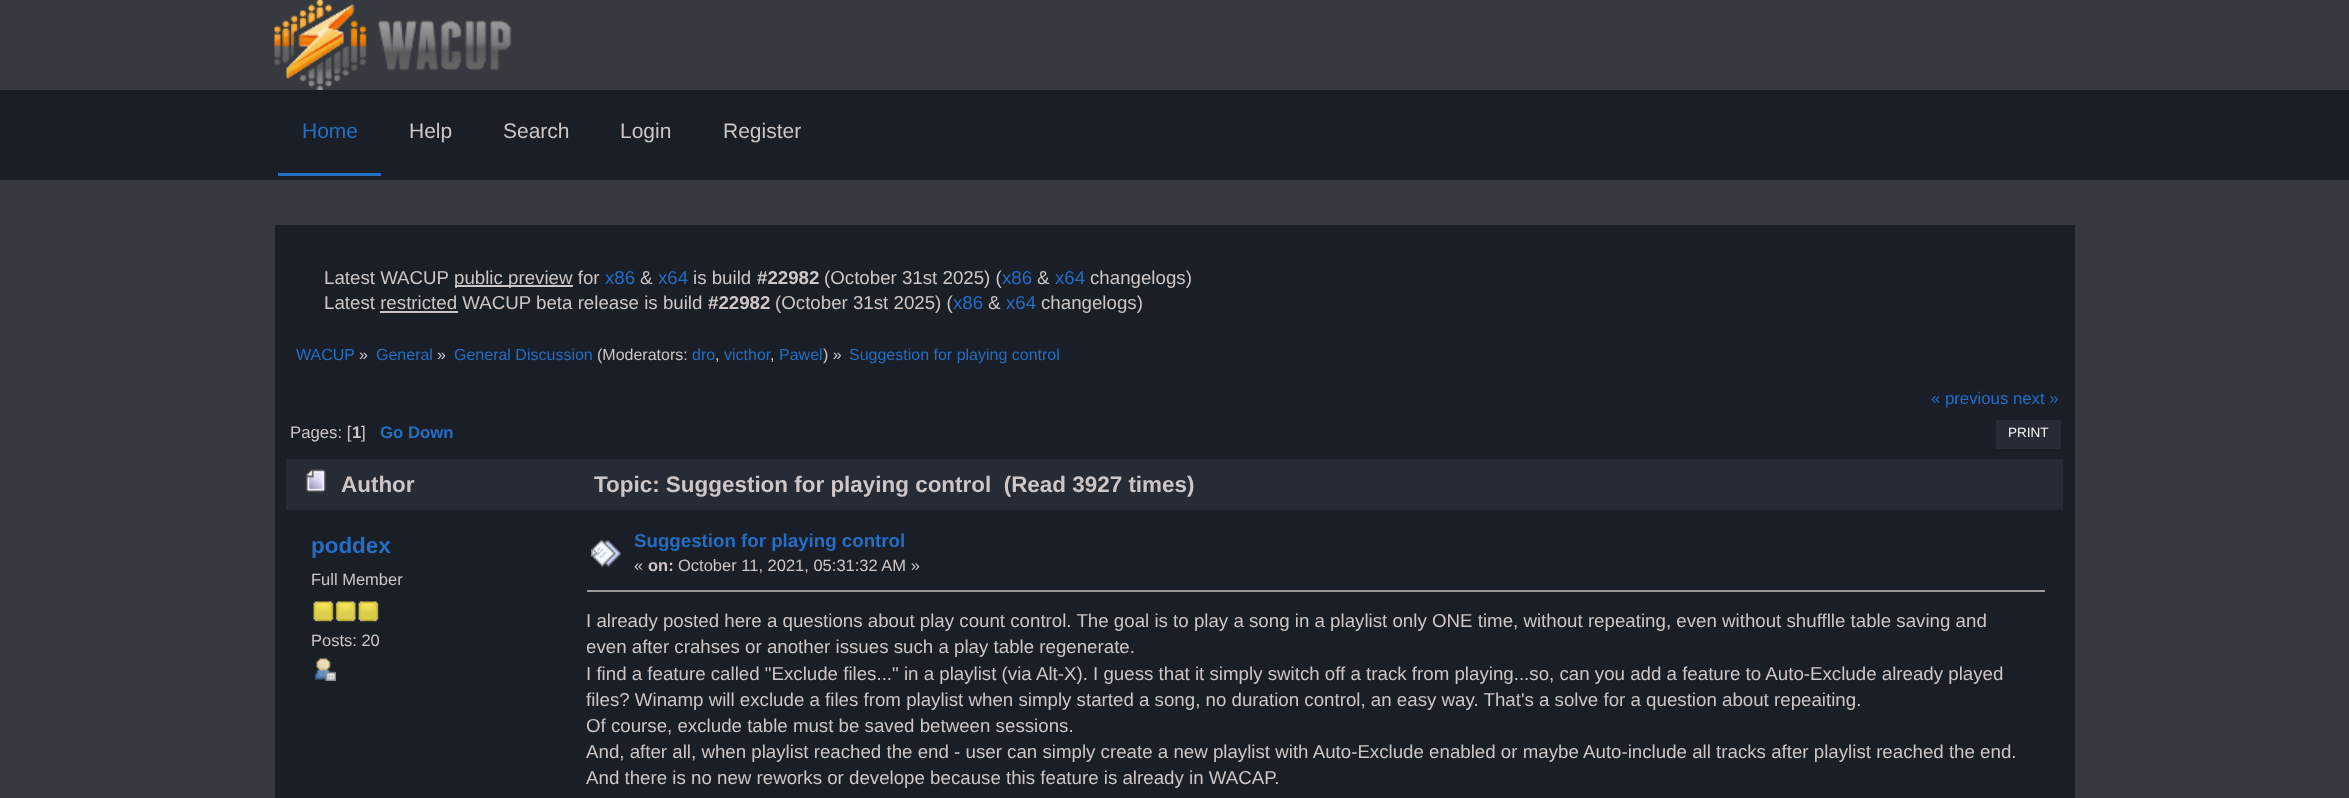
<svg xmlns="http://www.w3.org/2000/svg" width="2349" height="798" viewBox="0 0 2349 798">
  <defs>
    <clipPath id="clip1"><rect x="587" y="587" width="1476" height="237"/></clipPath>
  </defs>
  <rect width="100%" height="100%" fill="#36393f"/>
  <image x="274" y="0" width="238" height="90" href="img1.png"/>
  <rect x="0" y="90" width="2349" height="90" fill="#1a1e27"/>
  <rect x="278" y="173" width="103" height="3" fill="#246ec3"/>
  <text x="302" y="138" font-family="Liberation Sans" font-size="21" fill="#246ec3">Home</text>
  <text x="409" y="138" font-family="Liberation Sans" font-size="21" fill="#cec6c6">Help</text>
  <text x="503" y="138" font-family="Liberation Sans" font-size="21" fill="#cec6c6">Search</text>
  <text x="620" y="138" font-family="Liberation Sans" font-size="21" fill="#cec6c6">Login</text>
  <text x="723" y="138" font-family="Liberation Sans" font-size="21" fill="#cec6c6">Register</text>
  <rect x="275" y="225" width="1800" height="573" fill="#1a1e27"/>
  <text x="324" y="284" font-family="Liberation Sans" font-size="18.72" fill="#cec6c6">Latest WACUP</text>
  <rect x="455" y="285" width="118" height="2" fill="#cec6c6"/>
  <text x="454" y="284" font-family="Liberation Sans" font-size="18.72" fill="#cec6c6">public preview for</text>
  <text x="605" y="284" font-family="Liberation Sans" font-size="18.72" fill="#246ec3">x86</text>
  <text x="640" y="284" font-family="Liberation Sans" font-size="18.72" fill="#cec6c6">&amp;</text>
  <text x="658" y="284" font-family="Liberation Sans" font-size="18.72" fill="#246ec3">x64</text>
  <text x="693" y="284" font-family="Liberation Sans" font-size="18.72" fill="#cec6c6">is build</text>
  <text x="757" y="284" font-family="Liberation Sans" font-size="18.72" font-weight="bold" fill="#cec6c6">#22982</text>
  <text x="824" y="284" font-family="Liberation Sans" font-size="18.72" fill="#cec6c6">(October 31st 2025) (</text>
  <text x="1002" y="284" font-family="Liberation Sans" font-size="18.72" fill="#246ec3">x86</text>
  <text x="1037" y="284" font-family="Liberation Sans" font-size="18.72" fill="#cec6c6">&amp;</text>
  <text x="1055" y="284" font-family="Liberation Sans" font-size="18.72" fill="#246ec3">x64</text>
  <text x="1090" y="284" font-family="Liberation Sans" font-size="18.72" fill="#cec6c6">changelogs)</text>
  <text x="324" y="309" font-family="Liberation Sans" font-size="18.72" fill="#cec6c6">Latest restricted WACUP beta release is build</text>
  <text x="708" y="309" font-family="Liberation Sans" font-size="18.72" font-weight="bold" fill="#cec6c6">#22982</text>
  <text x="775" y="309" font-family="Liberation Sans" font-size="18.72" fill="#cec6c6">(October 31st 2025) (</text>
  <text x="953" y="309" font-family="Liberation Sans" font-size="18.72" fill="#246ec3">x86</text>
  <text x="988" y="309" font-family="Liberation Sans" font-size="18.72" fill="#cec6c6">&amp;</text>
  <text x="1006" y="309" font-family="Liberation Sans" font-size="18.72" fill="#246ec3">x64</text>
  <text x="1041" y="309" font-family="Liberation Sans" font-size="18.72" fill="#cec6c6">changelogs)</text>
  <rect x="380" y="311" width="78" height="2" fill="#cec6c6"/>
  <text x="296" y="360" font-family="Liberation Sans" font-size="16" fill="#246ec3">WACUP</text>
  <text x="359" y="360" font-family="Liberation Sans" font-size="16" fill="#cec6c6">»</text>
  <text x="376" y="360" font-family="Liberation Sans" font-size="16" fill="#246ec3">General</text>
  <text x="437" y="360" font-family="Liberation Sans" font-size="16" fill="#cec6c6">»</text>
  <text x="454" y="360" font-family="Liberation Sans" font-size="16" fill="#246ec3">General Discussion</text>
  <text x="597" y="360" font-family="Liberation Sans" font-size="16" fill="#cec6c6">(Moderators:</text>
  <text x="692" y="360" font-family="Liberation Sans" font-size="16" fill="#246ec3">dro</text>
  <text x="715" y="360" font-family="Liberation Sans" font-size="16" fill="#cec6c6">,</text>
  <text x="724" y="360" font-family="Liberation Sans" font-size="16" fill="#246ec3">victhor</text>
  <text x="770" y="360" font-family="Liberation Sans" font-size="16" fill="#cec6c6">,</text>
  <text x="779" y="360" font-family="Liberation Sans" font-size="16" fill="#246ec3">Pawel</text>
  <text x="823" y="360" font-family="Liberation Sans" font-size="16" fill="#cec6c6">) »</text>
  <text x="849" y="360" font-family="Liberation Sans" font-size="16" fill="#246ec3">Suggestion for playing control</text>
  <text x="1931" y="404" font-family="Liberation Sans" font-size="16.75" fill="#246ec3">« previous next »</text>
  <text x="290" y="438" font-family="Liberation Sans" font-size="16.75" fill="#cec6c6">Pages: [</text>
  <text x="352" y="438" font-family="Liberation Sans" font-size="16.75" font-weight="bold" fill="#cec6c6">1</text>
  <text x="361" y="438" font-family="Liberation Sans" font-size="16.75" fill="#cec6c6">]</text>
  <text x="380" y="438" font-family="Liberation Sans" font-size="16.75" font-weight="bold" fill="#246ec3">Go Down</text>
  <rect x="1996" y="420" width="65" height="29" fill="#272b35"/>
  <text x="2008" y="437" font-family="Liberation Sans" font-size="13.5" fill="#f7f7f7">PRINT</text>
  <rect x="286" y="459" width="1777" height="51" fill="#272b35"/>
  <image x="305" y="469" width="21" height="24" href="img2.png"/>
  <text x="341" y="492" font-family="Liberation Sans" font-size="22.45" font-weight="bold" fill="#cec6c6">Author</text>
  <text x="594" y="492" font-family="Liberation Sans" font-size="22.45" font-weight="bold" fill="#cec6c6" xml:space="preserve">Topic: Suggestion for playing control  (Read 3927 times)</text>
  <text x="311" y="553" font-family="Liberation Sans" font-size="22.45" font-weight="bold" fill="#246ec3">poddex</text>
  <text x="311" y="585" font-family="Liberation Sans" font-size="16.5" fill="#cec6c6">Full Member</text>
  <image x="313" y="601" width="21" height="21" href="img3.png"/>
  <image x="335" y="601" width="21" height="21" href="img4.png"/>
  <image x="358" y="601" width="21" height="21" href="img3.png"/>
  <text x="311" y="646" font-family="Liberation Sans" font-size="16.5" fill="#cec6c6">Posts: 20</text>
  <image x="314" y="658" width="22" height="23" href="img5.png"/>
  <image x="591" y="539" width="30" height="29" href="img6.png"/>
  <text x="634" y="547" font-family="Liberation Sans" font-size="18.72" font-weight="bold" fill="#246ec3">Suggestion for playing control</text>
  <text x="634" y="571" font-family="Liberation Sans" font-size="16.5" fill="#cec6c6">«</text>
  <text x="648" y="571" font-family="Liberation Sans" font-size="16.5" font-weight="bold" fill="#cec6c6">on:</text>
  <text x="678" y="571" font-family="Liberation Sans" font-size="16.5" fill="#cec6c6">October 11, 2021, 05:31:32 AM »</text>
  <rect x="587" y="590" width="1458" height="2" fill="#999999"/>
  <text x="586" y="627" font-family="Liberation Sans" font-size="18.72" fill="#cec6c6">I already posted here a questions about play count control. The goal is to play a song in a playlist only ONE time, without repeating, even without shufflle table saving and</text>
  <g clip-path="url(#clip1)">
    <text x="586" y="653" font-family="Liberation Sans" font-size="18.72" fill="#cec6c6">even after crahses or another issues such a play table regenerate.</text>
  </g>
  <text x="586" y="680" font-family="Liberation Sans" font-size="18.72" fill="#cec6c6">I find a feature called "Exclude files..." in a playlist (via Alt-X). I guess that it simply switch off a track from playing...so, can you add a feature to Auto-Exclude already played</text>
  <text x="586" y="706" font-family="Liberation Sans" font-size="18.72" fill="#cec6c6">files? Winamp will exclude a files from playlist when simply started a song, no duration control, an easy way. That's a solve for a question about repeaiting.</text>
  <text x="586" y="732" font-family="Liberation Sans" font-size="18.72" fill="#cec6c6">Of course, exclude table must be saved between sessions.</text>
  <text x="586" y="758" font-family="Liberation Sans" font-size="18.72" fill="#cec6c6">And, after all, when playlist reached the end - user can simply create a new playlist with Auto-Exclude enabled or maybe Auto-include all tracks after playlist reached the end.</text>
  <text x="586" y="784" font-family="Liberation Sans" font-size="18.72" fill="#cec6c6">And there is no new reworks or develope because this feature is already in WACAP.</text>
</svg>
